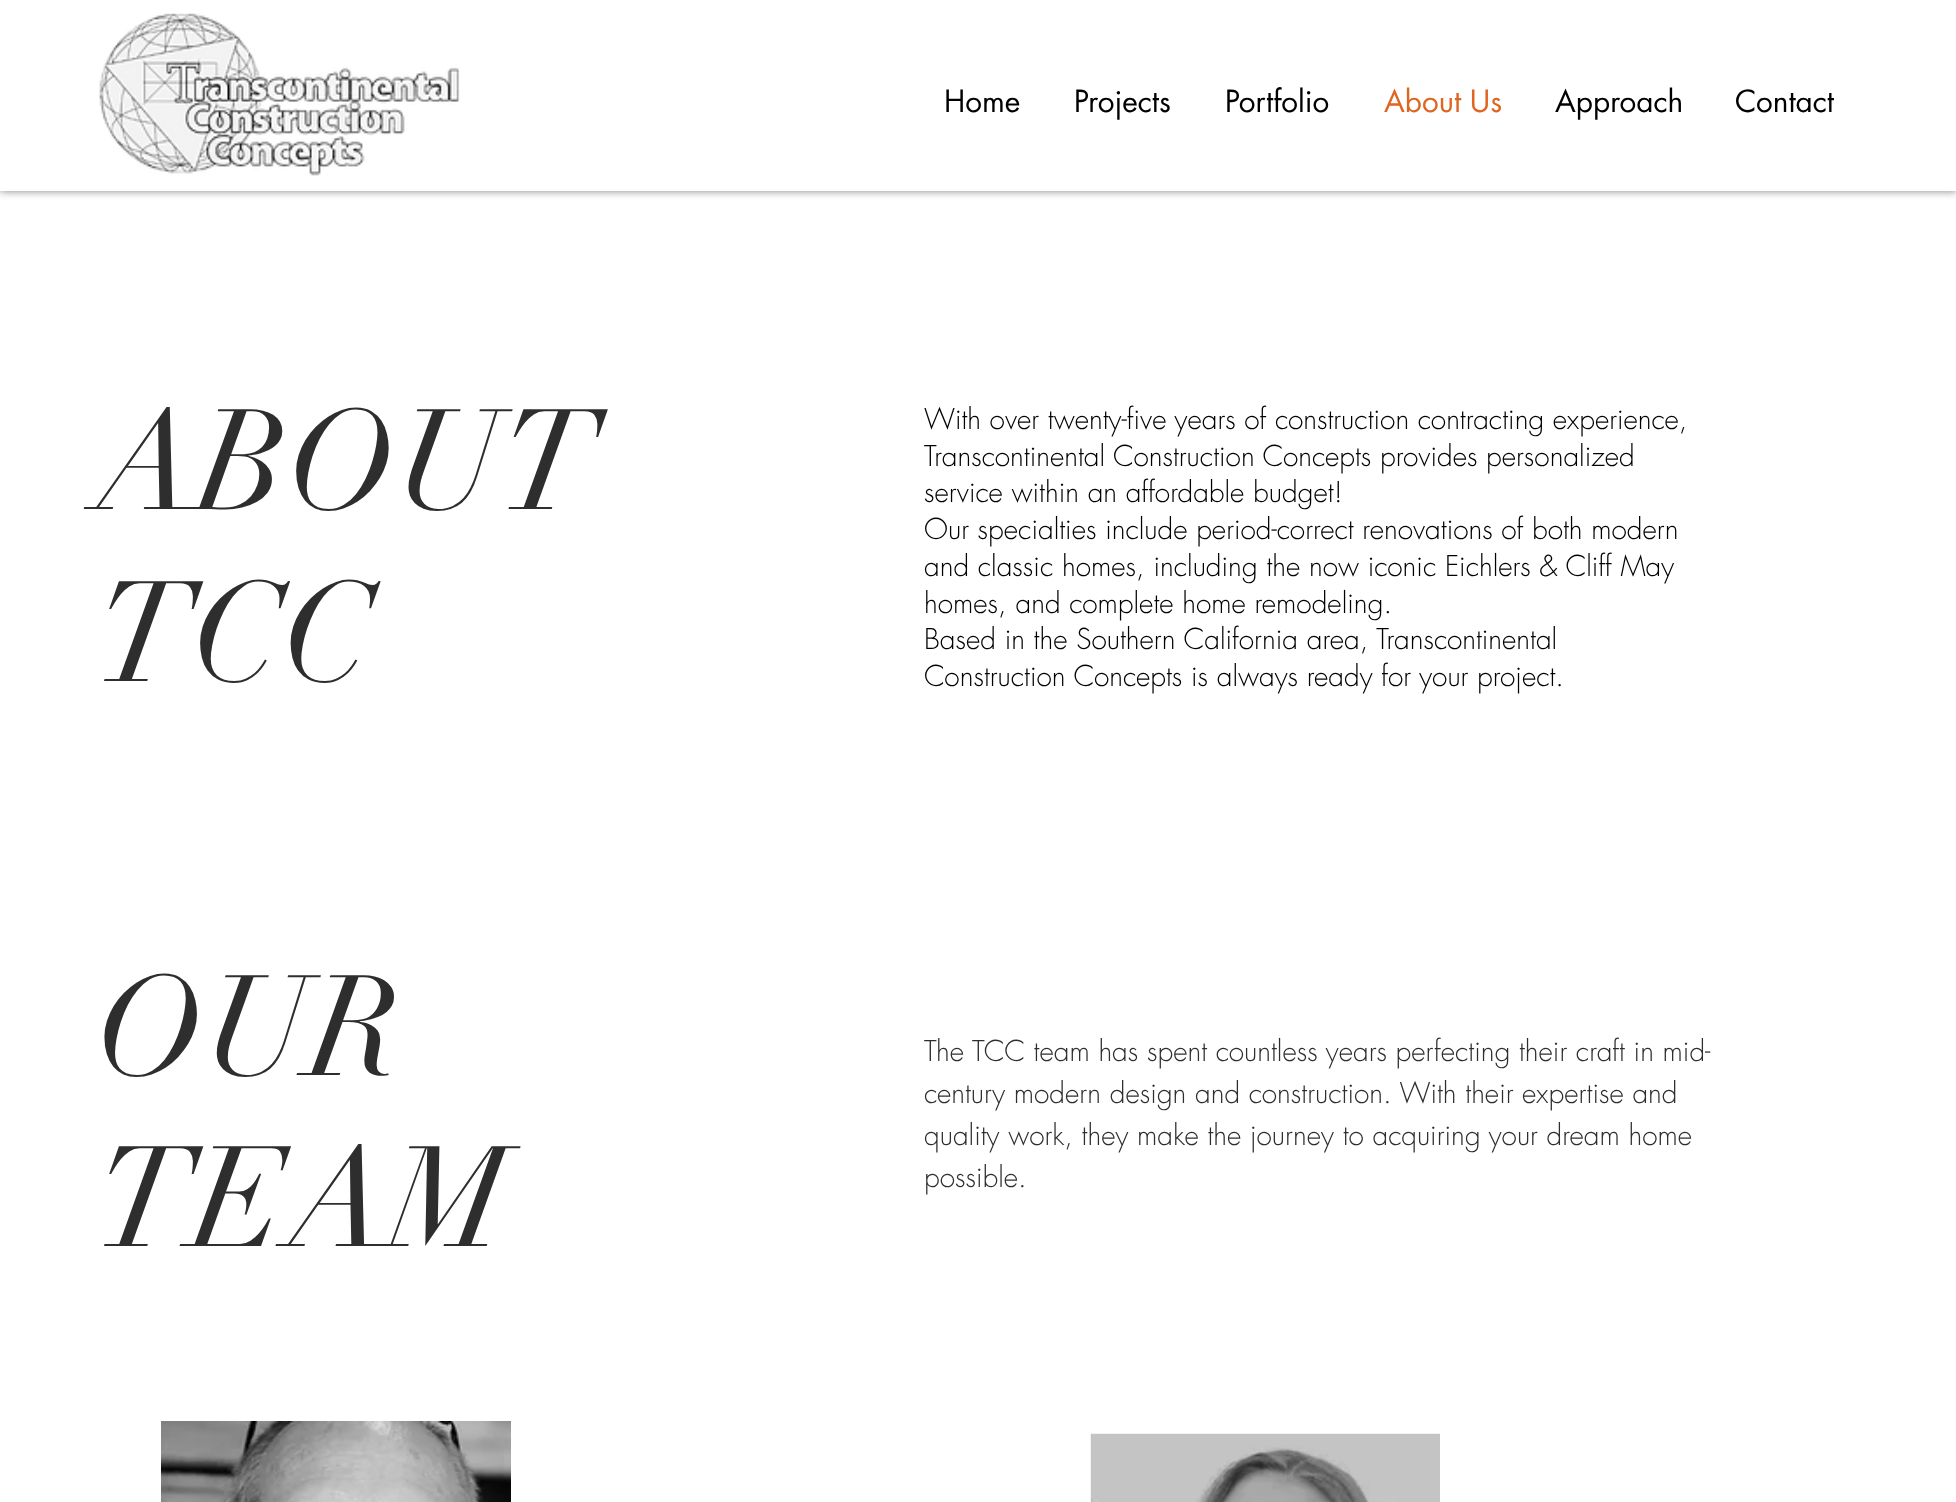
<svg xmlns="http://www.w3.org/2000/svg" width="1956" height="1502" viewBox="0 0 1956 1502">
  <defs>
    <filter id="blur1" x="-50%" y="-200%" width="200%" height="500%"><feGaussianBlur stdDeviation="4.5"/></filter>
  </defs>
  <rect width="100%" height="100%" fill="#ffffff"/>
  <rect x="0" y="0" width="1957" height="191" fill="#000000" fill-opacity="0.5" filter="url(#blur1)"/>
  <rect x="0" y="0" width="1956" height="191" fill="#ffffff"/>
  <image x="99" y="13" width="361" height="163" href="img1.png"/>
  <text x="944" y="112" font-family="futura" font-size="29.75" fill="#000000">Home</text>
  <text x="1074" y="112" font-family="futura" font-size="29.75" fill="#000000">Projects</text>
  <text x="1225" y="112" font-family="futura" font-size="29.75" fill="#000000">Portfolio</text>
  <text x="1384" y="112" font-family="futura" font-size="29.75" fill="#de6621">About Us</text>
  <text x="1555" y="112" font-family="futura" font-size="29.75" fill="#000000">Approach</text>
  <text x="1735" y="112" font-family="futura" font-size="29.75" fill="#000000">Contact</text>
  <text x="96" y="509" font-family="didot" font-size="140" fill="#2f2e2e">ABOUT</text>
  <text x="96" y="681" font-family="didot" font-size="140" fill="#2f2e2e">TCC</text>
  <text x="924" y="429" font-family="futura" font-size="28" font-weight="300" fill="#000000">With over twenty-five years of construction contracting experience,</text>
  <text x="924" y="466" font-family="futura" font-size="28" font-weight="300" fill="#000000">Transcontinental Construction Concepts provides personalized</text>
  <text x="924" y="502" font-family="futura" font-size="28" font-weight="300" fill="#000000">service within an affordable budget!</text>
  <text x="924" y="539" font-family="futura" font-size="28" font-weight="300" fill="#000000">Our specialties include period-correct renovations of both modern</text>
  <text x="924" y="576" font-family="futura" font-size="28" font-weight="300" fill="#000000">and classic homes, including the now iconic Eichlers &amp; Cliff May</text>
  <text x="924" y="613" font-family="futura" font-size="28" font-weight="300" fill="#000000">homes, and complete home remodeling.</text>
  <text x="924" y="649" font-family="futura" font-size="28" font-weight="300" fill="#000000">Based in the Southern California area, Transcontinental</text>
  <text x="924" y="686" font-family="futura" font-size="28" font-weight="300" fill="#000000">Construction Concepts is always ready for your project.</text>
  <text x="96" y="1075" font-family="didot" font-size="140" fill="#2f2e2e">OUR</text>
  <text x="96" y="1246" font-family="didot" font-size="140" fill="#2f2e2e">TEAM</text>
  <text x="924" y="1061" font-family="futura" font-size="28" font-weight="300" fill="#2f2e2e">The TCC team has spent countless years perfecting their craft in mid-</text>
  <text x="924" y="1103" font-family="futura" font-size="28" font-weight="300" fill="#2f2e2e">century modern design and construction. With their expertise and</text>
  <text x="924" y="1145" font-family="futura" font-size="28" font-weight="300" fill="#2f2e2e">quality work, they make the journey to acquiring your dream home</text>
  <text x="924" y="1187" font-family="futura" font-size="28" font-weight="300" fill="#2f2e2e">possible.</text>
  <image x="161" y="1421" width="350" height="81" href="img2.png"/>
  <image x="1090" y="1433" width="350" height="69" href="img3.png"/>
</svg>
